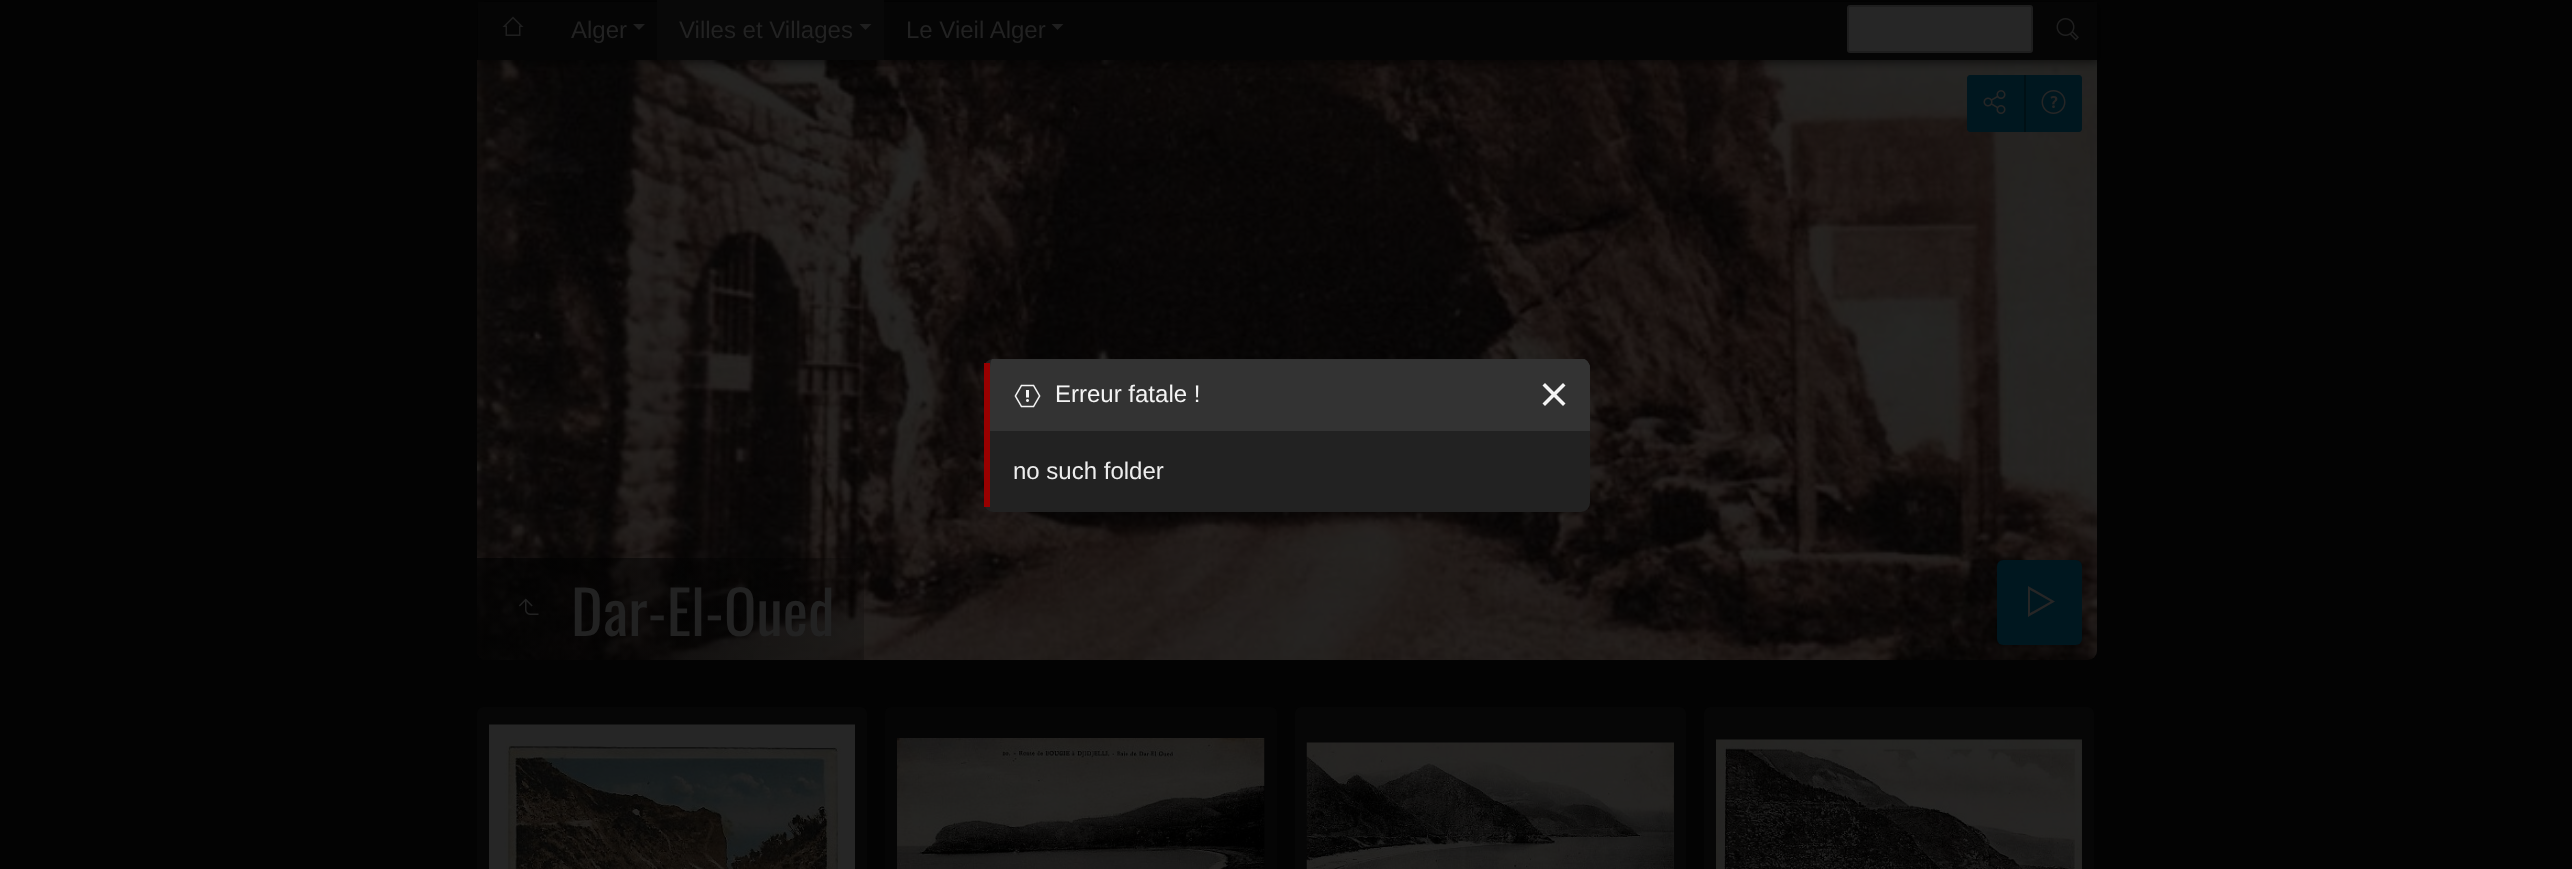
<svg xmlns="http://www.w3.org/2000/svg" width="2572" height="869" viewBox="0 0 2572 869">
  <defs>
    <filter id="blur1" x="-50%" y="-200%" width="200%" height="500%"><feGaussianBlur stdDeviation="4.5"/></filter>
    <linearGradient id="g1" gradientUnits="userSpaceOnUse" x1="477" y1="609" x2="864" y2="609"><stop offset="0" stop-color="#010101" stop-opacity="0.7"/><stop offset="0.6" stop-color="#010101" stop-opacity="0.45"/><stop offset="1" stop-color="#010101" stop-opacity="0.2"/></linearGradient>
  </defs>
  <rect width="100%" height="100%" fill="#030303"/>
  <image x="477" y="60" width="1620" height="600" href="img4.png"/>
  <path d="M1970 75H2024V132H1970C1968.5 132 1967 130.5 1967 129V78C1967 76.5 1968.5 75 1970 75Z" fill="#00171f"/>
  <path d="M2024 75H2079C2080.5 75 2082 76.5 2082 78V129C2082 130.5 2080.5 132 2079 132H2024Z" fill="#00171f"/>
  <rect x="2024" y="75" width="2" height="57" fill="#001015"/>
  <rect x="479" y="3" width="1620" height="60" fill="#000000" fill-opacity="0.52" filter="url(#blur1)"/>
  <rect x="478" y="2" width="1619" height="58" fill="#050505"/>
  <image x="502" y="16" width="22" height="20" href="img1.png"/>
  <text x="571" y="38" font-family="Liberation Sans" font-size="24" fill="#222222">Alger</text>
  <path d="M633 24H645L639 30Z" fill="#1f1f1f"/>
  <rect x="657" y="0" width="227" height="60" fill="#080808"/>
  <text x="679" y="38" font-family="Liberation Sans" font-size="24" fill="#222222">Villes et Villages</text>
  <path d="M859.5 24H871.5L865.5 30Z" fill="#1f1f1f"/>
  <text x="906" y="38" font-family="Liberation Sans" font-size="24" fill="#222222">Le Vieil Alger</text>
  <path d="M1051.5 24H1063.5L1057.5 30Z" fill="#1f1f1f"/>
  <rect x="1848" y="6" width="184" height="46" rx="2" fill="#262626" stroke="#1e1e1e" stroke-width="2"/>
  <image x="2056" y="18" width="23" height="23" href="img2.png"/>
  <rect x="984" y="359" width="606" height="153" rx="9" fill="#222222"/>
  <rect x="984" y="363" width="6" height="144" fill="#990000"/>
  <path d="M990 368V431H1590V368C1590 364 1587 360 1584 359H992C991 360 990 364 990 368Z" fill="#333333"/>
  <image x="1014" y="384" width="27" height="24" href="img3.png"/>
  <text x="1055" y="402" font-family="Liberation Sans" font-size="24" fill="#f4f4f4">Erreur fatale !</text>
  <path d="M1518 359V431H1590V368C1590 364 1587 360 1584 359Z" fill="#333333"/>
  <path d="M1563 383L1565.5 385.5L1545 406L1542.5 403.5Z" fill="#f4f4f4"/>
  <path d="M1542.5 385.5L1545 383L1565.5 403.5L1563 406Z" fill="#f4f4f4"/>
  <text x="1013" y="479" font-family="Liberation Sans" font-size="24" fill="#eeeeee">no such folder</text>
  <path d="M477 558H855C860 558 864 562 864 567V660H486C481 660 477 656 477 651Z" fill="url(#g1)"/>
  <image x="518" y="598" width="21" height="17" href="img5.png"/>
  <text x="571" y="636" font-family="Oswald" font-size="60" fill="#222222">Dar-El-Oued</text>
  <image x="1983" y="90" width="23" height="24" href="img6.png"/>
  <image x="2041" y="90" width="25" height="24" href="img7.png"/>
  <rect x="1997" y="560" width="85" height="85" rx="6" fill="#00171f"/>
  <path d="M2030 590L2050.5 601.5L2030 613ZM2028 586V617L2055 601.5Z" fill="#262626"/>
  <rect x="477" y="707" width="390" height="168" rx="6" fill="#060606"/>
  <image x="489" y="724" width="366" height="145" href="img8.png"/>
  <rect x="885" y="707" width="392" height="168" rx="6" fill="#0a0a0a" fill-opacity="0.4"/>
  <image x="897" y="738" width="368" height="131" href="img9.png"/>
  <rect x="1295" y="707" width="391" height="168" rx="6" fill="#060606"/>
  <image x="1306" y="742" width="368" height="127" href="img10.png"/>
  <rect x="1704" y="707" width="390" height="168" rx="6" fill="#060606"/>
  <image x="1716" y="739" width="366" height="130" href="img11.png"/>
</svg>
